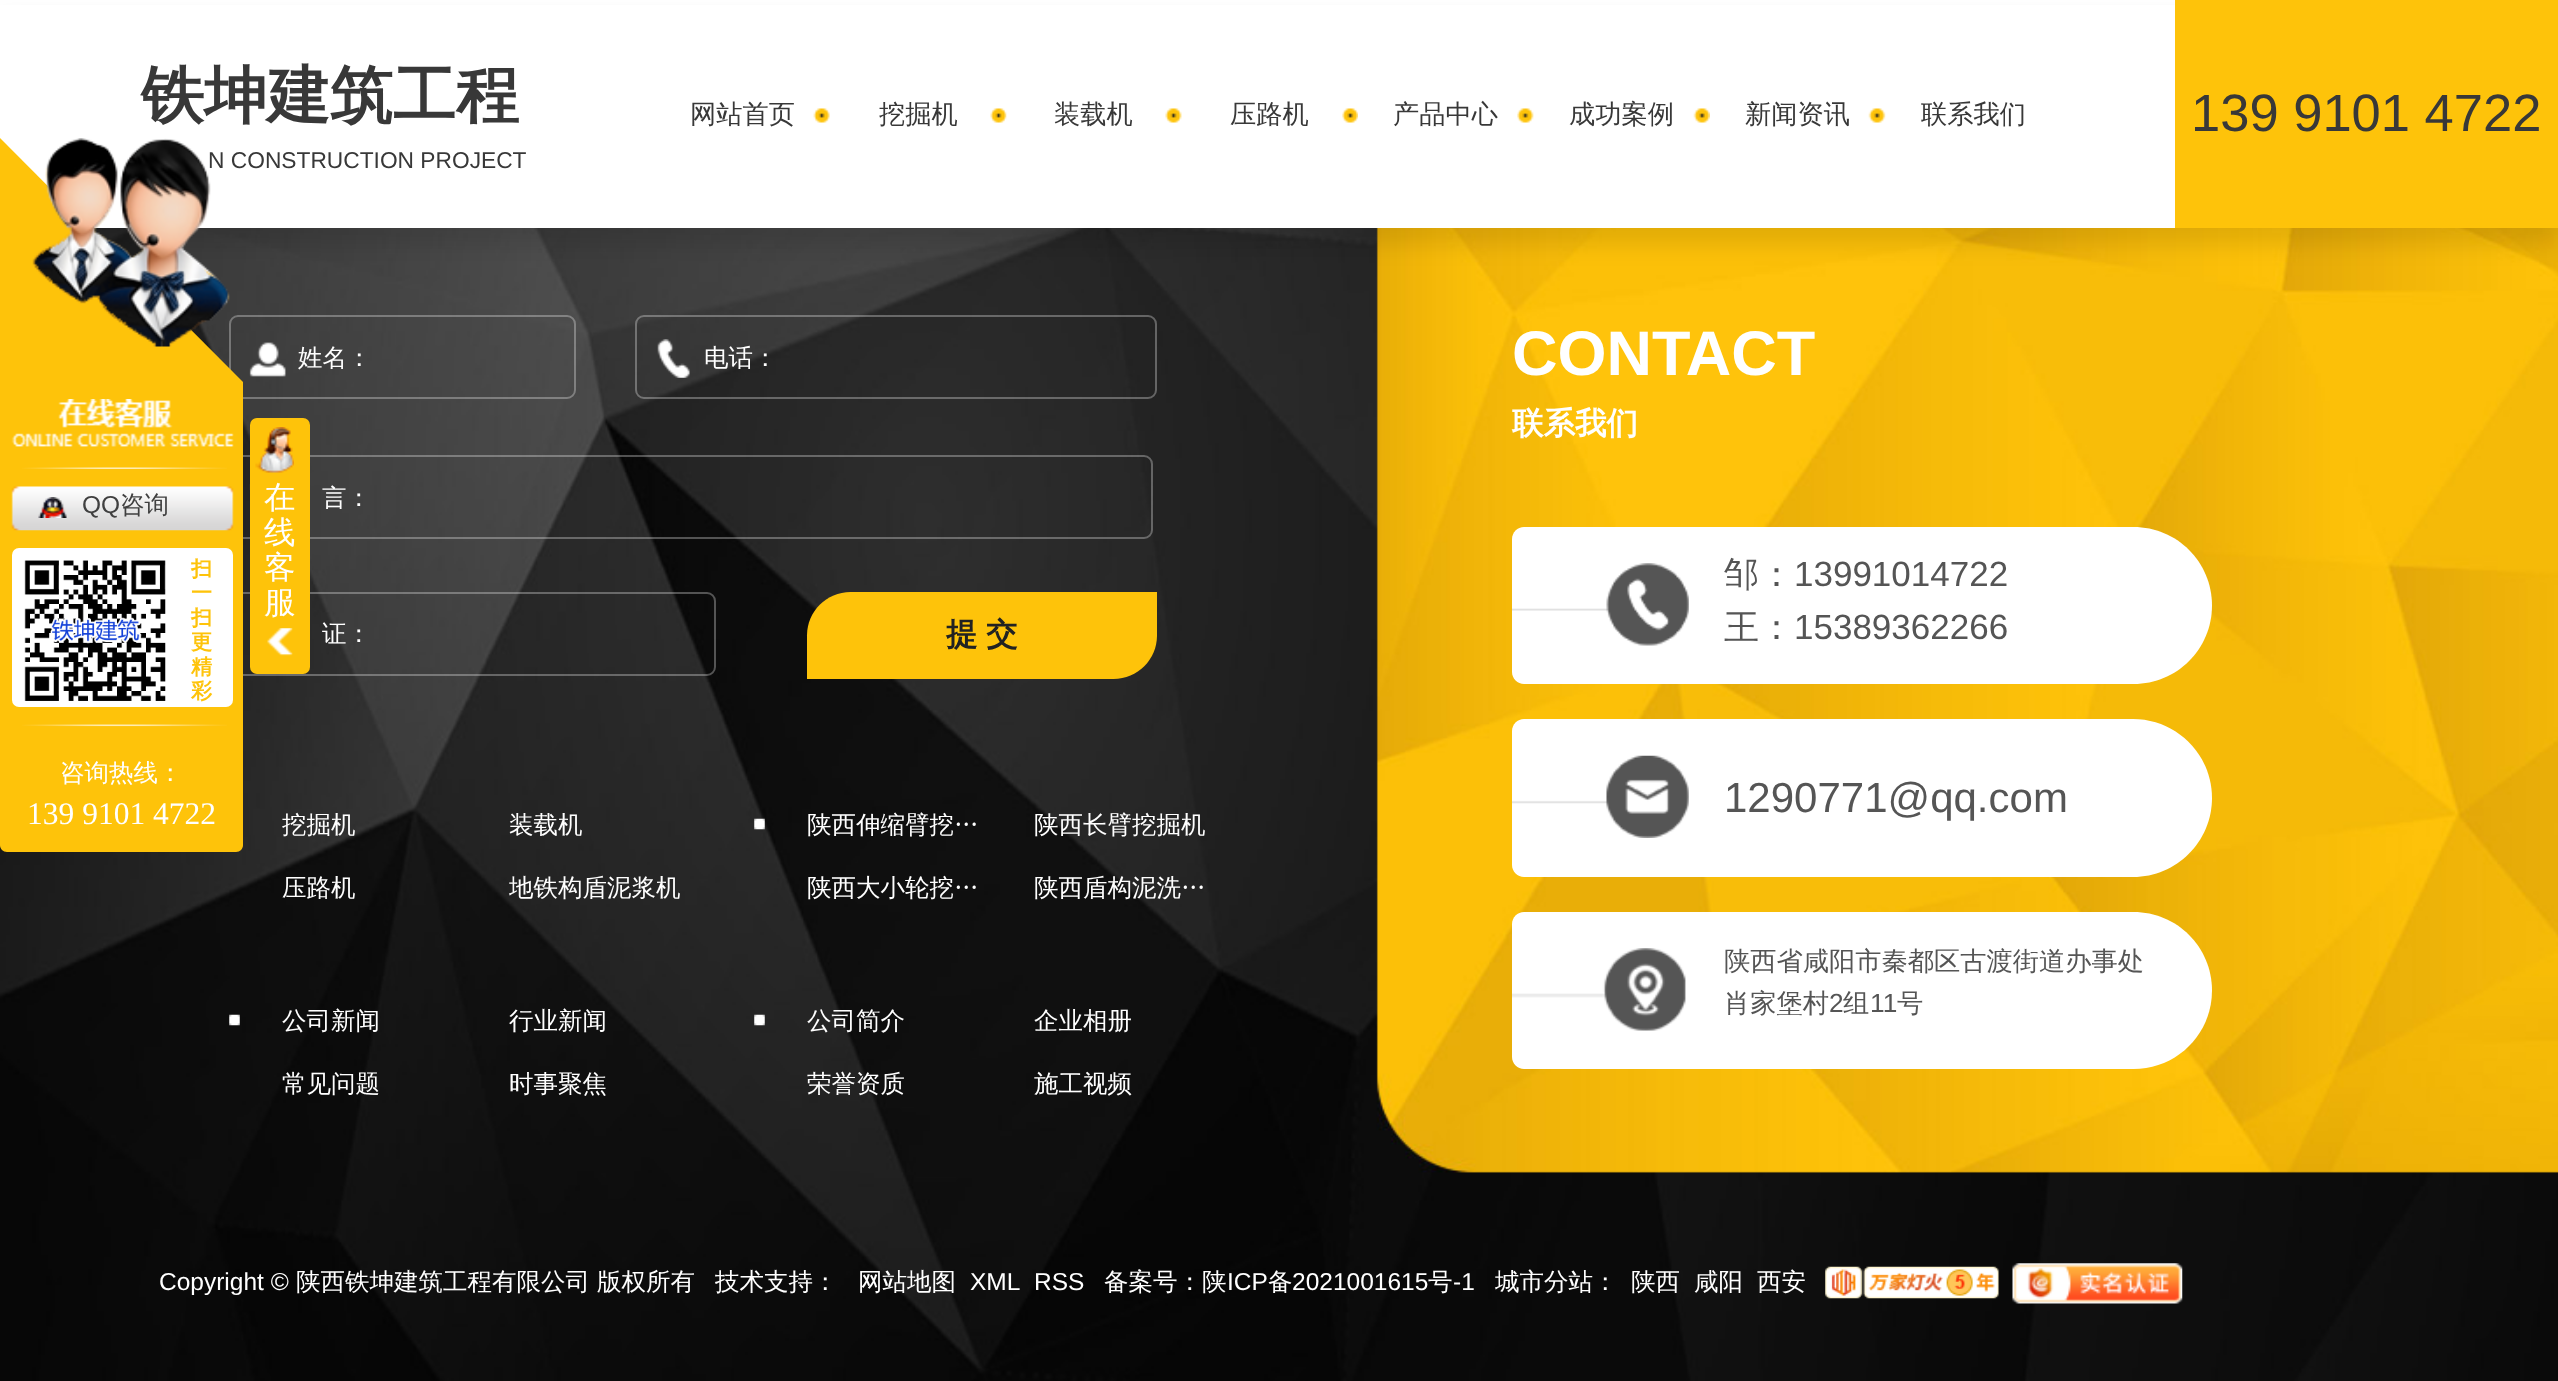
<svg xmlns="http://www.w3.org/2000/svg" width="2558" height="1381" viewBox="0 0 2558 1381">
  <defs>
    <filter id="blur1" x="-50%" y="-200%" width="200%" height="500%"><feGaussianBlur stdDeviation="10.5"/></filter>
  </defs>
  <rect width="100%" height="100%" fill="#ffffff"/>
  <image x="0" y="228" width="2558" height="1153" href="img8.png"/>
  <rect x="0" y="18" width="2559" height="227" fill="#000000" fill-opacity="0.1" filter="url(#blur1)"/>
  <rect x="0" y="5" width="2175" height="223" fill="#ffffff"/>
  <text x="141" y="117" font-family="WenQuanYi Zen Hei" font-size="63" font-weight="bold" fill="#383838">铁坤建筑工程</text>
  <text x="208" y="168" font-family="Liberation Sans" font-size="22.75" fill="#383838">N CONSTRUCTION PROJECT</text>
  <image x="813" y="108" width="17" height="15" href="img1.png"/>
  <text x="690" y="123" font-family="WenQuanYi Zen Hei" font-size="26.25" font-weight="500" fill="#383838">网站首页</text>
  <image x="990" y="108" width="17" height="15" href="img2.png"/>
  <text x="879" y="123" font-family="WenQuanYi Zen Hei" font-size="26.25" font-weight="500" fill="#383838">挖掘机</text>
  <image x="1165" y="108" width="17" height="15" href="img3.png"/>
  <text x="1054" y="123" font-family="WenQuanYi Zen Hei" font-size="26.25" font-weight="500" fill="#383838">装载机</text>
  <image x="1342" y="108" width="16" height="15" href="img4.png"/>
  <text x="1230" y="123" font-family="WenQuanYi Zen Hei" font-size="26.25" font-weight="500" fill="#383838">压路机</text>
  <image x="1517" y="108" width="17" height="15" href="img5.png"/>
  <text x="1393" y="123" font-family="WenQuanYi Zen Hei" font-size="26.25" font-weight="500" fill="#383838">产品中心</text>
  <image x="1693" y="108" width="17" height="15" href="img6.png"/>
  <text x="1569" y="123" font-family="WenQuanYi Zen Hei" font-size="26.25" font-weight="500" fill="#383838">成功案例</text>
  <image x="1868" y="108" width="18" height="15" href="img7.png"/>
  <text x="1745" y="123" font-family="WenQuanYi Zen Hei" font-size="26.25" font-weight="500" fill="#383838">新闻资讯</text>
  <text x="1921" y="123" font-family="WenQuanYi Zen Hei" font-size="26.25" font-weight="500" fill="#383838">联系我们</text>
  <rect x="2175" y="0" width="383" height="228" fill="#fec30a"/>
  <text x="2191" y="131" font-family="Liberation Sans" font-size="52.5" fill="#383838">139 9101 4722</text>
  <rect x="230" y="316" width="345" height="82" rx="8" fill="none" stroke="#ffffff" stroke-opacity="0.3" stroke-width="2"/>
  <image x="249" y="342" width="37" height="35" href="img9.png"/>
  <text x="298" y="366" font-family="WenQuanYi Zen Hei" font-size="24.5" font-weight="500" fill="#ffffff">姓名：</text>
  <rect x="636" y="316" width="520" height="82" rx="8" fill="none" stroke="#ffffff" stroke-opacity="0.3" stroke-width="2"/>
  <image x="657" y="339" width="33" height="39" href="img10.png"/>
  <text x="704" y="366" font-family="WenQuanYi Zen Hei" font-size="24.5" font-weight="500" fill="#ffffff">电话：</text>
  <rect x="230" y="456" width="922" height="82" rx="8" fill="none" stroke="#ffffff" stroke-opacity="0.3" stroke-width="2"/>
  <image x="249" y="484" width="1" height="6" href="img11.png"/>
  <text x="322" y="506" font-family="WenQuanYi Zen Hei" font-size="24.5" font-weight="500" fill="#ffffff">言：</text>
  <rect x="230" y="593" width="485" height="82" rx="8" fill="none" stroke="#ffffff" stroke-opacity="0.3" stroke-width="2"/>
  <text x="322" y="642" font-family="WenQuanYi Zen Hei" font-size="24.5" font-weight="500" fill="#ffffff">证：</text>
  <path d="M850.5 592H1157V635.5C1157 659.5 1137.5 679 1113.5 679H807V635.5C807 611.5 826.5 592 850.5 592Z" fill="#fec30a"/>
  <text x="946" y="645" font-family="WenQuanYi Zen Hei" font-size="31.5" font-weight="bold" fill="#222222">提</text>
  <text x="986" y="645" font-family="WenQuanYi Zen Hei" font-size="31.5" font-weight="bold" fill="#222222">交</text>
  <text x="282" y="833" font-family="WenQuanYi Zen Hei" font-size="24.5" font-weight="500" fill="#ffffff">挖掘机</text>
  <text x="509" y="833" font-family="WenQuanYi Zen Hei" font-size="24.5" font-weight="500" fill="#ffffff">装载机</text>
  <text x="282" y="896" font-family="WenQuanYi Zen Hei" font-size="24.5" font-weight="500" fill="#ffffff">压路机</text>
  <text x="509" y="896" font-family="WenQuanYi Zen Hei" font-size="24.5" font-weight="500" fill="#ffffff">地铁构盾泥浆机</text>
  <image x="754" y="818" width="11" height="12" href="img12.png"/>
  <text x="807" y="833" font-family="WenQuanYi Zen Hei" font-size="24.5" font-weight="500" fill="#ffffff">陕西伸缩臂挖…</text>
  <text x="1034" y="833" font-family="WenQuanYi Zen Hei" font-size="24.5" font-weight="500" fill="#ffffff">陕西长臂挖掘机</text>
  <text x="807" y="896" font-family="WenQuanYi Zen Hei" font-size="24.5" font-weight="500" fill="#ffffff">陕西大小轮挖…</text>
  <text x="1034" y="896" font-family="WenQuanYi Zen Hei" font-size="24.5" font-weight="500" fill="#ffffff">陕西盾构泥洗…</text>
  <image x="229" y="1014" width="11" height="12" href="img13.png"/>
  <text x="282" y="1029" font-family="WenQuanYi Zen Hei" font-size="24.5" font-weight="500" fill="#ffffff">公司新闻</text>
  <text x="509" y="1029" font-family="WenQuanYi Zen Hei" font-size="24.5" font-weight="500" fill="#ffffff">行业新闻</text>
  <text x="282" y="1092" font-family="WenQuanYi Zen Hei" font-size="24.5" font-weight="500" fill="#ffffff">常见问题</text>
  <text x="509" y="1092" font-family="WenQuanYi Zen Hei" font-size="24.5" font-weight="500" fill="#ffffff">时事聚焦</text>
  <image x="754" y="1014" width="11" height="12" href="img14.png"/>
  <text x="807" y="1029" font-family="WenQuanYi Zen Hei" font-size="24.5" font-weight="500" fill="#ffffff">公司简介</text>
  <text x="1034" y="1029" font-family="WenQuanYi Zen Hei" font-size="24.5" font-weight="500" fill="#ffffff">企业相册</text>
  <text x="807" y="1092" font-family="WenQuanYi Zen Hei" font-size="24.5" font-weight="500" fill="#ffffff">荣誉资质</text>
  <text x="1034" y="1092" font-family="WenQuanYi Zen Hei" font-size="24.5" font-weight="500" fill="#ffffff">施工视频</text>
  <text x="1512" y="375" font-family="Liberation Sans" font-size="63" font-weight="bold" fill="#ffffff">CONTACT</text>
  <text x="1512" y="434" font-family="WenQuanYi Zen Hei" font-size="31.5" font-weight="bold" fill="#ffffff">联系我们</text>
  <path d="M1524 527H2133.5C2177 527 2212 562 2212 605.5C2212 649 2177 684 2133.5 684H1524C1517.5 684 1512 678.5 1512 672V539C1512 532.5 1517.5 527 1524 527Z" fill="#ffffff"/>
  <image x="1512" y="563" width="177" height="83" href="img15.png"/>
  <text x="1724" y="586" font-family="WenQuanYi Zen Hei" font-size="35" font-weight="500" fill="#555555">邹：</text>
  <text x="1794" y="586" font-family="Liberation Sans" font-size="35" fill="#555555">13991014722</text>
  <text x="1724" y="639" font-family="WenQuanYi Zen Hei" font-size="35" font-weight="500" fill="#555555">王：</text>
  <text x="1794" y="639" font-family="Liberation Sans" font-size="35" fill="#555555">15389362266</text>
  <path d="M1524 719H2133C2176.5 719 2212 754.5 2212 798C2212 841.5 2176.5 877 2133 877H1524C1517.5 877 1512 871.5 1512 865V731C1512 724.5 1517.5 719 1524 719Z" fill="#ffffff"/>
  <image x="1512" y="755" width="177" height="83" href="img16.png"/>
  <text x="1724" y="812" font-family="Liberation Sans" font-size="42" fill="#555555">1290771@qq.com</text>
  <path d="M1524 912H2133.5C2177 912 2212 947 2212 990.5C2212 1034 2177 1069 2133.5 1069H1524C1517.5 1069 1512 1063.5 1512 1057V924C1512 917.5 1517.5 912 1524 912Z" fill="#ffffff"/>
  <image x="1512" y="948" width="174" height="83" href="img17.png"/>
  <text x="1724" y="970" font-family="WenQuanYi Zen Hei" font-size="26.25" font-weight="500" fill="#555555">陕西省咸阳市秦都区古渡街道办事处</text>
  <text x="1724" y="1012" font-family="WenQuanYi Zen Hei" font-size="26.25" font-weight="500" fill="#555555">肖家堡村</text>
  <text x="1829" y="1012" font-family="Liberation Sans" font-size="26.25" fill="#555555">2</text>
  <text x="1843" y="1012" font-family="WenQuanYi Zen Hei" font-size="26.25" font-weight="500" fill="#555555">组</text>
  <text x="1870" y="1012" font-family="Liberation Sans" font-size="26.25" fill="#555555">11</text>
  <text x="1897" y="1012" font-family="WenQuanYi Zen Hei" font-size="26.25" font-weight="500" fill="#555555">号</text>
  <text x="159" y="1290" font-family="Liberation Sans" font-size="24.5" fill="#ffffff">Copyright ©</text>
  <text x="296" y="1290" font-family="WenQuanYi Zen Hei" font-size="24.5" font-weight="500" fill="#ffffff">陕西铁坤建筑工程有限公司</text>
  <text x="597" y="1290" font-family="WenQuanYi Zen Hei" font-size="24.5" font-weight="500" fill="#ffffff">版权所有</text>
  <text x="715" y="1290" font-family="WenQuanYi Zen Hei" font-size="24.5" font-weight="500" fill="#ffffff">技术支持：</text>
  <text x="858" y="1290" font-family="WenQuanYi Zen Hei" font-size="24.5" font-weight="500" fill="#ffffff">网站地图</text>
  <text x="970" y="1290" font-family="Liberation Sans" font-size="24.5" fill="#ffffff">XML</text>
  <text x="1034" y="1290" font-family="Liberation Sans" font-size="24.5" fill="#ffffff">RSS</text>
  <text x="1104" y="1290" font-family="WenQuanYi Zen Hei" font-size="24.5" font-weight="500" fill="#ffffff">备案号：陕</text>
  <text x="1227" y="1290" font-family="Liberation Sans" font-size="24.5" fill="#ffffff">ICP</text>
  <text x="1268" y="1290" font-family="WenQuanYi Zen Hei" font-size="24.5" font-weight="500" fill="#ffffff">备</text>
  <text x="1292" y="1290" font-family="Liberation Sans" font-size="24.5" fill="#ffffff">2021001615</text>
  <text x="1428" y="1290" font-family="WenQuanYi Zen Hei" font-size="24.5" font-weight="500" fill="#ffffff">号</text>
  <text x="1453" y="1290" font-family="Liberation Sans" font-size="24.5" fill="#ffffff">-1</text>
  <text x="1495" y="1290" font-family="WenQuanYi Zen Hei" font-size="24.5" font-weight="500" fill="#ffffff">城市分站：</text>
  <text x="1631" y="1290" font-family="WenQuanYi Zen Hei" font-size="24.5" font-weight="500" fill="#ffffff">陕西</text>
  <text x="1694" y="1290" font-family="WenQuanYi Zen Hei" font-size="24.5" font-weight="500" fill="#ffffff">咸阳</text>
  <text x="1757" y="1290" font-family="WenQuanYi Zen Hei" font-size="24.5" font-weight="500" fill="#ffffff">西安</text>
  <image x="1825" y="1266" width="174" height="33" href="img18.png"/>
  <image x="2012" y="1263" width="171" height="41" href="img19.png"/>
  <path d="M0 138L243 382H0Z" fill="#fec30a"/>
  <image x="32" y="138" width="198" height="209" href="img20.png"/>
  <path d="M0 382H243V845C243 849 240 852 236 852H7C3 852 0 849 0 845Z" fill="#fec30a"/>
  <image x="11" y="399" width="223" height="48" href="img21.png"/>
  <image x="22" y="467" width="205" height="2" href="img22.png"/>
  <image x="11" y="486" width="223" height="45" href="img23.png"/>
  <image x="38" y="497" width="29" height="21" href="img24.png"/>
  <text x="82" y="513" font-family="Liberation Sans" font-size="24.5" fill="#404040">QQ</text>
  <text x="120" y="513" font-family="WenQuanYi Zen Hei" font-size="24.5" font-weight="500" fill="#404040">咨询</text>
  <rect x="12" y="548" width="221" height="159" rx="7" fill="#ffffff"/>
  <image x="24" y="560" width="142" height="141" href="img25.png"/>
  <text x="191" y="576" font-family="WenQuanYi Zen Hei" font-size="21" font-weight="bold" fill="#fec30a">扫</text>
  <text x="191" y="600" font-family="WenQuanYi Zen Hei" font-size="21" font-weight="bold" fill="#fec30a">一</text>
  <text x="191" y="625" font-family="WenQuanYi Zen Hei" font-size="21" font-weight="bold" fill="#fec30a">扫</text>
  <text x="191" y="649" font-family="WenQuanYi Zen Hei" font-size="21" font-weight="bold" fill="#fec30a">更</text>
  <text x="191" y="674" font-family="WenQuanYi Zen Hei" font-size="21" font-weight="bold" fill="#fec30a">精</text>
  <text x="191" y="698" font-family="WenQuanYi Zen Hei" font-size="21" font-weight="bold" fill="#fec30a">彩</text>
  <image x="22" y="724" width="205" height="3" href="img26.png"/>
  <text x="60" y="781" font-family="WenQuanYi Zen Hei" font-size="24.5" font-weight="500" fill="#ffffff">咨询热线：</text>
  <text x="27" y="824" font-family="Liberation Serif" font-size="31.5" fill="#ffffff">139 9101 4722</text>
  <rect x="250" y="418" width="60" height="256" rx="7" fill="#fec30a"/>
  <image x="267" y="628" width="26" height="28" href="img27.png"/>
  <image x="255" y="427" width="39" height="46" href="img28.png"/>
  <text x="264" y="508" font-family="WenQuanYi Zen Hei" font-size="31.5" font-weight="500" fill="#ffffff">在</text>
  <text x="264" y="543" font-family="WenQuanYi Zen Hei" font-size="31.5" font-weight="500" fill="#ffffff">线</text>
  <text x="264" y="578" font-family="WenQuanYi Zen Hei" font-size="31.5" font-weight="500" fill="#ffffff">客</text>
  <text x="264" y="613" font-family="WenQuanYi Zen Hei" font-size="31.5" font-weight="500" fill="#ffffff">服</text>
</svg>
